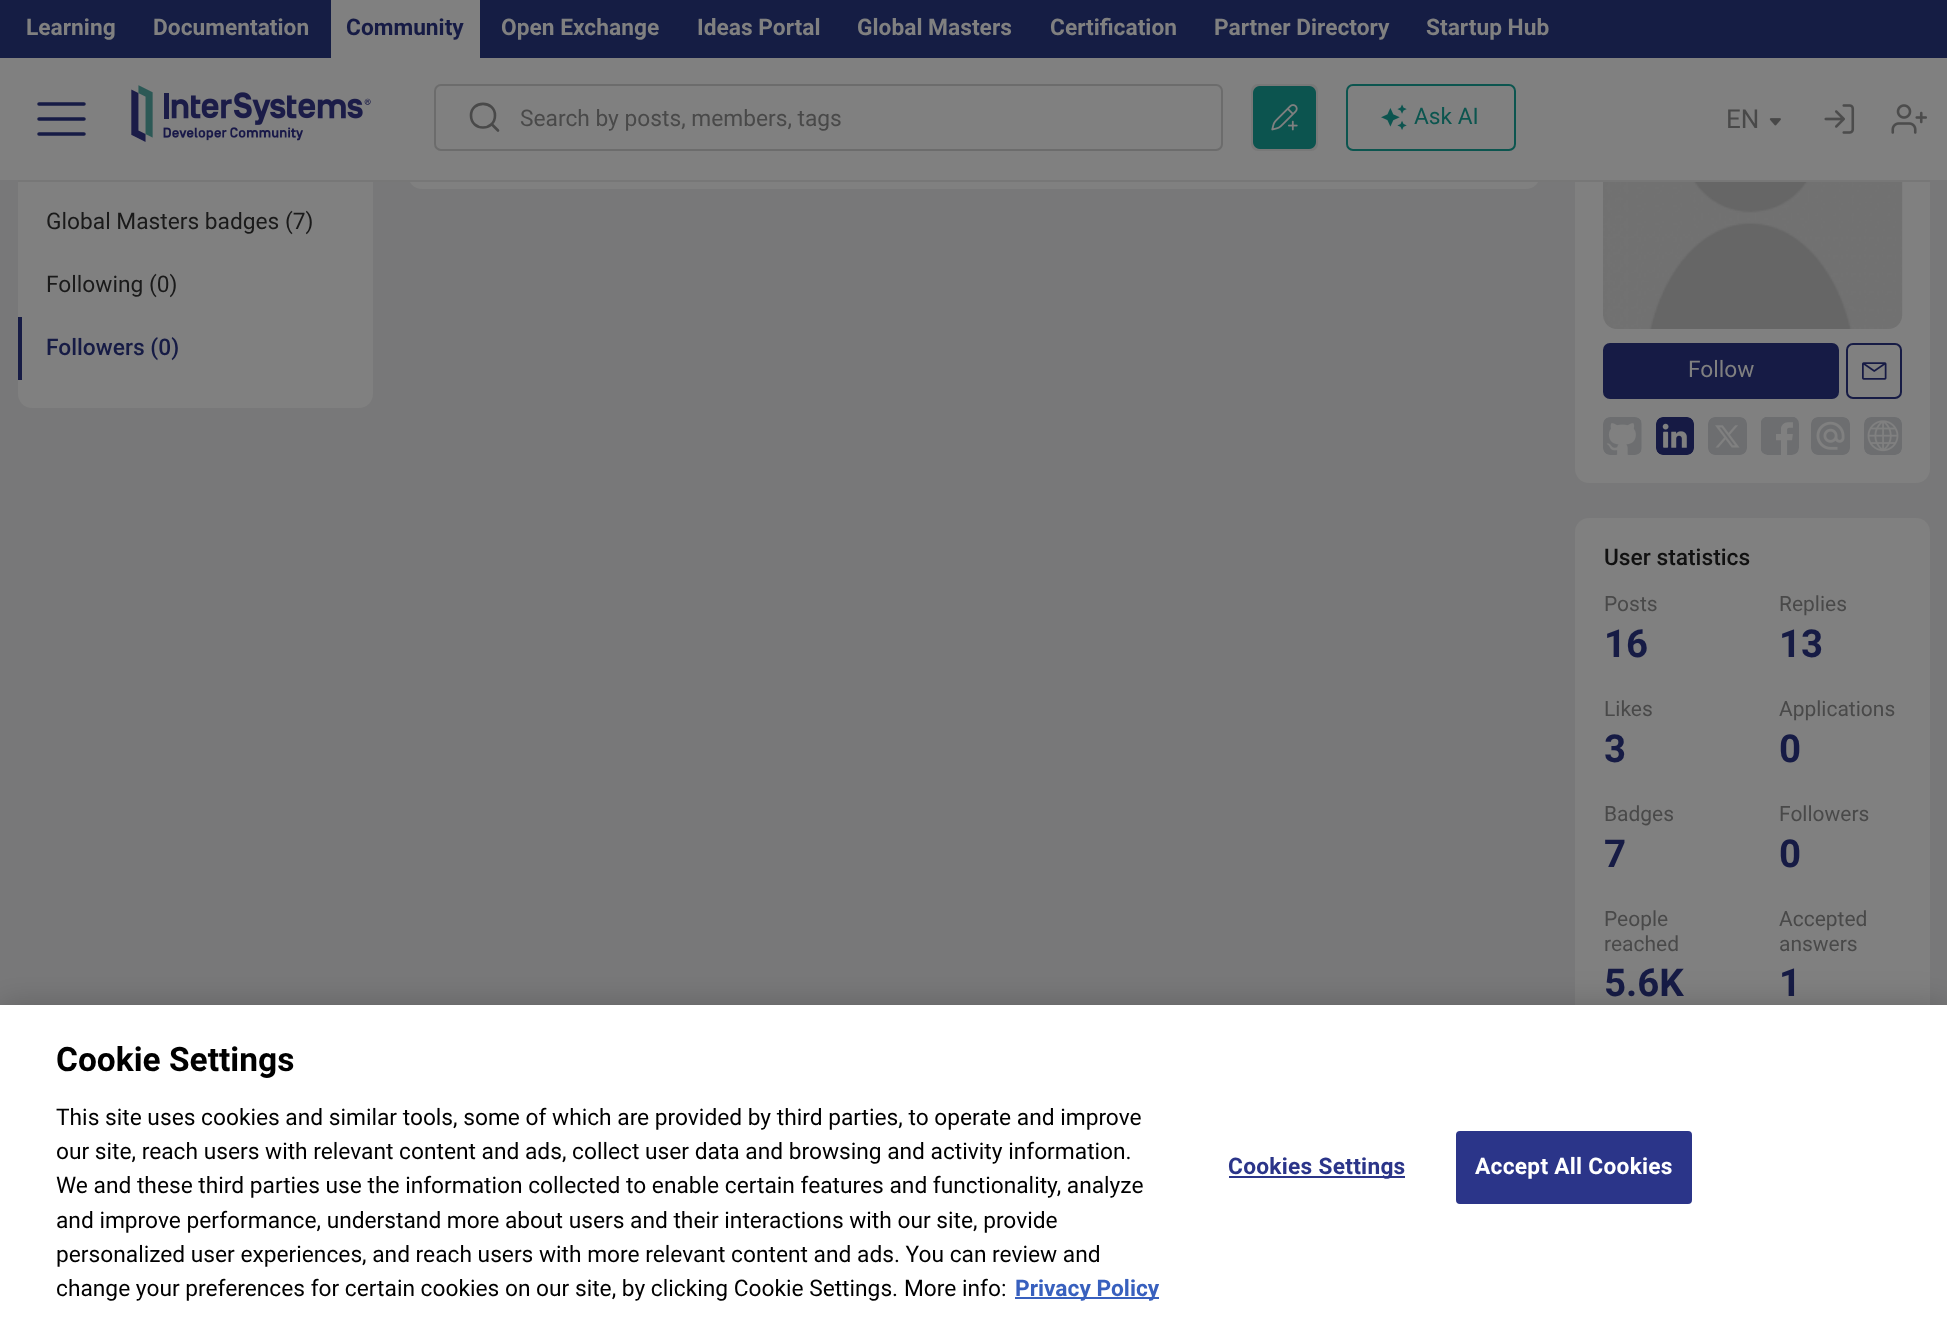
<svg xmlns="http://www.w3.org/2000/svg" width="1947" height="1323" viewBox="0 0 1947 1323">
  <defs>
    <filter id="blur1" x="-50%" y="-200%" width="200%" height="500%"><feGaussianBlur stdDeviation="16"/></filter>
  </defs>
  <rect width="100%" height="100%" fill="#787879"/>
  <rect x="408" y="-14" width="1132" height="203" rx="14" fill="#808080"/>
  <rect x="18" y="-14" width="355" height="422" rx="14" fill="#808080"/>
  <rect x="1575" y="-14" width="355" height="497" rx="14" fill="#808080"/>
  <rect x="0" y="58" width="1947" height="122" fill="#808080"/>
  <rect x="18" y="180" width="1912" height="2" fill="#777777"/>
  <rect x="0" y="0" width="1947" height="58" fill="#151d44"/>
  <text x="26" y="35" font-family="Roboto" font-size="22.75" font-weight="bold" fill="#808080">Learning</text>
  <text x="153" y="35" font-family="Roboto" font-size="22.75" font-weight="bold" fill="#808080">Documentation</text>
  <rect x="331" y="0" width="149" height="58" fill="#808080"/>
  <text x="346" y="35" font-family="Roboto" font-size="22.75" font-weight="bold" fill="#161b45">Community</text>
  <text x="501" y="35" font-family="Roboto" font-size="22.75" font-weight="bold" fill="#808080">Open Exchange</text>
  <text x="697" y="35" font-family="Roboto" font-size="22.75" font-weight="bold" fill="#808080">Ideas Portal</text>
  <text x="857" y="35" font-family="Roboto" font-size="22.75" font-weight="bold" fill="#808080">Global Masters</text>
  <text x="1050" y="35" font-family="Roboto" font-size="22.75" font-weight="bold" fill="#808080">Certification</text>
  <text x="1214" y="35" font-family="Roboto" font-size="22.75" font-weight="bold" fill="#808080">Partner Directory</text>
  <text x="1426" y="35" font-family="Roboto" font-size="22.75" font-weight="bold" fill="#808080">Startup Hub</text>
  <path d="M39 119H84M39 104H84M39 134H84" fill="none" stroke="#161b45" stroke-width="3.5" stroke-linecap="round" stroke-linejoin="round"/>
  <image x="131" y="85" width="240" height="57" href="img1.png"/>
  <path d="M498 130.5L491.5 124M495 115.5C495 131.5 471 131.5 471 115.5C471 100 495 100 495 115.5Z" fill="none" stroke="#494949" stroke-width="2.6" stroke-linecap="round" stroke-linejoin="round"/>
  <rect x="435" y="85" width="787" height="65" rx="6" fill="none" stroke="#6c6c6c" stroke-width="2"/>
  <text x="520" y="126" font-family="Roboto" font-size="22.75" fill="#494949">Search by posts, members, tags</text>
  <rect x="1251" y="84" width="67" height="67" rx="7" fill="#787878"/>
  <image x="1253" y="86" width="63" height="63" href="img2.png"/>
  <image x="1381" y="104" width="26" height="26" href="img3.png"/>
  <rect x="1347" y="85" width="168" height="65" rx="6" fill="none" stroke="#0c554f" stroke-width="2"/>
  <text x="1414" y="124" font-family="Roboto" font-size="22.75" fill="#0c554f">Ask AI</text>
  <text x="1726" y="128" font-family="Roboto" font-size="26" fill="#494949">EN</text>
  <image x="1769" y="118" width="12" height="8" href="img4.png"/>
  <image x="1824" y="104" width="31" height="30" href="img5.png"/>
  <image x="1891" y="104" width="36" height="30" href="img6.png"/>
  <text x="46" y="229" font-family="Roboto" font-size="22.75" fill="#1a1a1a">Global Masters badges (7)</text>
  <text x="46" y="292" font-family="Roboto" font-size="22.75" fill="#1a1a1a">Following (0)</text>
  <rect x="18" y="317" width="4" height="63" fill="#161b45"/>
  <text x="46" y="355" font-family="Roboto" font-size="22.75" font-weight="500" fill="#161b45">Followers (0)</text>
  <image x="1603" y="182" width="300" height="147" href="img7.png"/>
  <rect x="1604" y="344" width="234" height="54" rx="6" fill="#161b45" stroke="#161b45" stroke-width="2"/>
  <text x="1688" y="377" font-family="Roboto" font-size="22.75" fill="#808080">Follow</text>
  <image x="1862" y="362" width="25" height="18" href="img8.png"/>
  <rect x="1847" y="344" width="54" height="54" rx="6" fill="none" stroke="#161b45" stroke-width="2"/>
  <image x="1603" y="417" width="39" height="38" href="img9.png"/>
  <image x="1656" y="417" width="38" height="38" href="img10.png"/>
  <image x="1708" y="417" width="39" height="38" href="img11.png"/>
  <image x="1761" y="417" width="38" height="38" href="img12.png"/>
  <image x="1811" y="417" width="39" height="38" href="img13.png"/>
  <image x="1864" y="417" width="38" height="38" href="img14.png"/>
  <rect x="1575" y="518" width="355" height="511" rx="14" fill="#808080"/>
  <text x="1604" y="565" font-family="Roboto" font-size="22.75" font-weight="500" fill="#111111">User statistics</text>
  <text x="1604" y="611" font-family="Roboto" font-size="21" fill="#494949">Posts</text>
  <text x="1604" y="657" font-family="Roboto" font-size="38.5" font-weight="bold" fill="#161b45">16</text>
  <text x="1779" y="611" font-family="Roboto" font-size="21" fill="#494949">Replies</text>
  <text x="1779" y="657" font-family="Roboto" font-size="38.5" font-weight="bold" fill="#161b45">13</text>
  <text x="1604" y="716" font-family="Roboto" font-size="21" fill="#494949">Likes</text>
  <text x="1604" y="762" font-family="Roboto" font-size="38.5" font-weight="bold" fill="#161b45">3</text>
  <text x="1779" y="716" font-family="Roboto" font-size="21" fill="#494949">Applications</text>
  <text x="1779" y="762" font-family="Roboto" font-size="38.5" font-weight="bold" fill="#161b45">0</text>
  <text x="1604" y="821" font-family="Roboto" font-size="21" fill="#494949">Badges</text>
  <text x="1604" y="867" font-family="Roboto" font-size="38.5" font-weight="bold" fill="#161b45">7</text>
  <text x="1779" y="821" font-family="Roboto" font-size="21" fill="#494949">Followers</text>
  <text x="1779" y="867" font-family="Roboto" font-size="38.5" font-weight="bold" fill="#161b45">0</text>
  <text x="1604" y="926" font-family="Roboto" font-size="21" fill="#494949">People</text>
  <text x="1604" y="951" font-family="Roboto" font-size="21" fill="#494949">reached</text>
  <text x="1604" y="996" font-family="Roboto" font-size="38.5" font-weight="bold" fill="#161b45">5.6K</text>
  <text x="1779" y="926" font-family="Roboto" font-size="21" fill="#494949">Accepted</text>
  <text x="1779" y="951" font-family="Roboto" font-size="21" fill="#494949">answers</text>
  <text x="1779" y="996" font-family="Roboto" font-size="38.5" font-weight="bold" fill="#161b45">1</text>
  <rect x="0" y="1005" width="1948" height="318" fill="#000000" fill-opacity="0.2" filter="url(#blur1)"/>
  <rect x="0" y="1005" width="1947" height="318" fill="#ffffff"/>
  <text x="56" y="1071" font-family="Roboto" font-size="33.5" font-weight="bold" fill="#000000">Cookie Settings</text>
  <text x="56" y="1125" font-family="Roboto" font-size="22.75" fill="#000000">This site uses cookies and similar tools, some of which are provided by third parties, to operate and improve</text>
  <text x="56" y="1159" font-family="Roboto" font-size="22.75" fill="#000000">our site, reach users with relevant content and ads, collect user data and browsing and activity information.</text>
  <text x="56" y="1193" font-family="Roboto" font-size="22.75" fill="#000000">We and these third parties use the information collected to enable certain features and functionality, analyze</text>
  <text x="56" y="1228" font-family="Roboto" font-size="22.75" fill="#000000">and improve performance, understand more about users and their interactions with our site, provide</text>
  <text x="56" y="1262" font-family="Roboto" font-size="22.75" fill="#000000">personalized user experiences, and reach users with more relevant content and ads. You can review and</text>
  <text x="56" y="1296" font-family="Roboto" font-size="22.75" fill="#000000">change your preferences for certain cookies on our site, by clicking Cookie Settings.</text>
  <text x="904" y="1296" font-family="Roboto" font-size="22.75" fill="#000000">More info:</text>
  <rect x="1015" y="1297" width="144" height="2" fill="#3860be"/>
  <text x="1015" y="1296" font-family="Roboto" font-size="22.75" font-weight="bold" fill="#3860be">Privacy Policy</text>
  <rect x="1229" y="1176" width="176" height="2" fill="#2b3589"/>
  <text x="1228" y="1174" font-family="Roboto" font-size="22.75" font-weight="bold" letter-spacing="0.25" fill="#2b3589">Cookies Settings</text>
  <rect x="1457" y="1132" width="234" height="71" rx="3" fill="#2b3589" stroke="#2b3589" stroke-width="2"/>
  <text x="1475" y="1174" font-family="Roboto" font-size="22.75" font-weight="bold" letter-spacing="0.25" fill="#ffffff">Accept All Cookies</text>
</svg>
